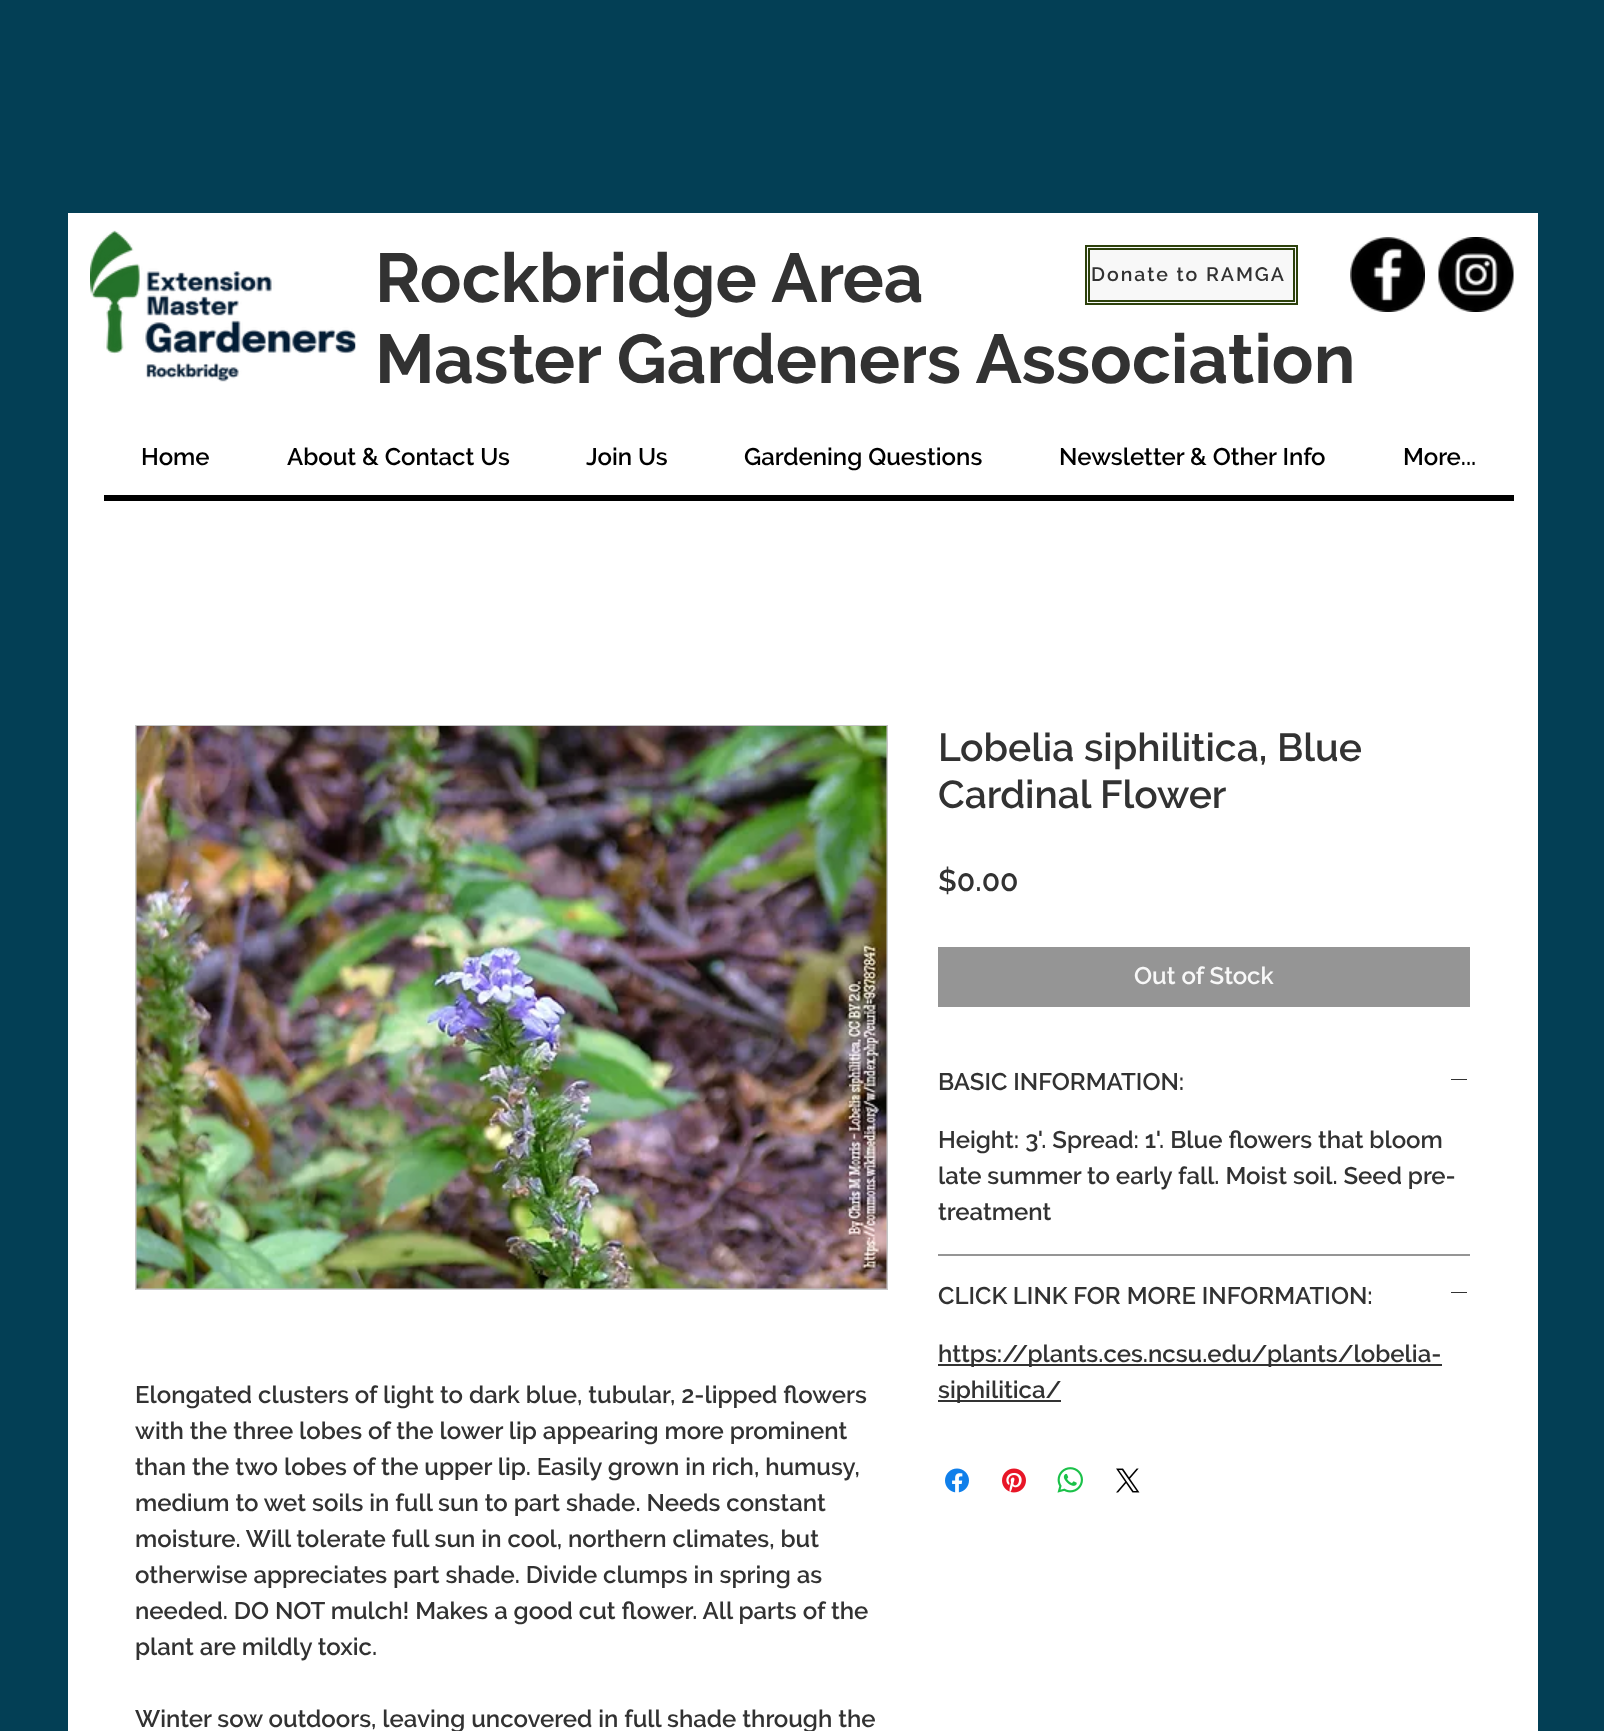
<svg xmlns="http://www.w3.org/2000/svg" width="1604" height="1731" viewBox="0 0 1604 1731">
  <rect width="100%" height="100%" fill="#033f55"/>
  <rect x="68" y="213" width="1470" height="1518" fill="#ffffff"/>
  <image x="90" y="230" width="266" height="152" href="img1.png"/>
  <text x="375" y="302" font-family="Raleway" font-size="69" font-weight="bold" fill="#323232">Rockbridge Area</text>
  <text x="375" y="383" font-family="Raleway" font-size="69" font-weight="bold" fill="#323232">Master Gardeners Association</text>
  <image x="1350" y="237" width="75" height="75" href="img2.png"/>
  <image x="1438" y="237" width="76" height="75" href="img3.png"/>
  <rect x="1086" y="246" width="211" height="58" fill="#f8f8f8" stroke="#2d410c" stroke-width="2"/>
  <rect x="1089" y="249" width="205" height="52" fill="none" stroke="#2d410c" stroke-width="2"/>
  <text x="1091" y="281" font-family="Raleway" font-size="19.5" font-weight="600" letter-spacing="2" fill="#323232">Donate to RAMGA</text>
  <path d="M104 495V501H1514V426V495Z" fill="#000000"/>
  <text x="141" y="465" font-family="Raleway" font-size="24" font-weight="600" fill="#000000">Home</text>
  <text x="287" y="465" font-family="Raleway" font-size="24" font-weight="600" fill="#000000">About &amp; Contact Us</text>
  <text x="586" y="465" font-family="Raleway" font-size="24" font-weight="600" fill="#000000">Join Us</text>
  <text x="744" y="465" font-family="Raleway" font-size="24" font-weight="600" fill="#000000">Gardening Questions</text>
  <text x="1059" y="465" font-family="Raleway" font-size="24" font-weight="600" fill="#000000">Newsletter &amp; Other Info</text>
  <text x="1403" y="465" font-family="Raleway" font-size="24" font-weight="600" fill="#000000">More...</text>
  <text x="938" y="761" font-family="Raleway" font-size="39" font-weight="600" fill="#323232">Lobelia siphilitica, Blue</text>
  <text x="938" y="808" font-family="Raleway" font-size="39" font-weight="600" fill="#323232">Cardinal Flower</text>
  <text x="938" y="891" font-family="Raleway" font-size="30" font-weight="600" fill="#323232">$0.00</text>
  <rect x="938" y="947" width="532" height="60" fill="#959595"/>
  <text x="1134" y="984" font-family="Raleway" font-size="24" font-weight="600" fill="#f8f8f8">Out of Stock</text>
  <rect x="938" y="1254" width="532" height="2" fill="#959595"/>
  <text x="938" y="1090" font-family="Raleway" font-size="24" font-weight="600" fill="#323232">BASIC INFORMATION:</text>
  <rect x="1451" y="1079" width="16" height="1" fill="#323232"/>
  <text x="938" y="1148" font-family="Raleway" font-size="24" font-weight="600" fill="#323232">Height: 3'. Spread: 1'. Blue flowers that bloom</text>
  <text x="938" y="1184" font-family="Raleway" font-size="24" font-weight="600" fill="#323232">late summer to early fall. Moist soil. Seed pre-</text>
  <text x="938" y="1220" font-family="Raleway" font-size="24" font-weight="600" fill="#323232">treatment</text>
  <text x="938" y="1304" font-family="Raleway" font-size="24" font-weight="600" fill="#323232">CLICK LINK FOR MORE INFORMATION:</text>
  <rect x="1451" y="1292" width="16" height="1" fill="#323232"/>
  <rect x="938" y="1364" width="504" height="2" fill="#323232"/>
  <text x="938" y="1362" font-family="Raleway" font-size="24" font-weight="600" fill="#323232">https://plants.ces.ncsu.edu/plants/lobelia-</text>
  <rect x="938" y="1400" width="123" height="2" fill="#323232"/>
  <text x="938" y="1398" font-family="Raleway" font-size="24" font-weight="600" fill="#323232">siphilitica/</text>
  <image x="945" y="1468" width="24" height="25" href="img4.png"/>
  <image x="1002" y="1468" width="24" height="25" href="img5.png"/>
  <image x="1057" y="1467" width="26" height="26" href="img6.png"/>
  <image x="1116" y="1468" width="24" height="25" href="img7.png"/>
  <rect x="136" y="726" width="751" height="563" fill="none" stroke="#c6c6c6" stroke-width="2"/>
  <image x="136" y="726" width="751" height="563" href="img8.png"/>
  <text x="135" y="1403" font-family="Raleway" font-size="24" font-weight="600" fill="#323232">Elongated clusters of light to dark blue, tubular, 2-lipped flowers</text>
  <text x="135" y="1439" font-family="Raleway" font-size="24" font-weight="600" fill="#323232">with the three lobes of the lower lip appearing more prominent</text>
  <text x="135" y="1475" font-family="Raleway" font-size="24" font-weight="600" fill="#323232">than the two lobes of the upper lip. Easily grown in rich, humusy,</text>
  <text x="135" y="1511" font-family="Raleway" font-size="24" font-weight="600" fill="#323232">medium to wet soils in full sun to part shade. Needs constant</text>
  <text x="135" y="1547" font-family="Raleway" font-size="24" font-weight="600" fill="#323232">moisture. Will tolerate full sun in cool, northern climates, but</text>
  <text x="135" y="1583" font-family="Raleway" font-size="24" font-weight="600" fill="#323232">otherwise appreciates part shade. Divide clumps in spring as</text>
  <text x="135" y="1619" font-family="Raleway" font-size="24" font-weight="600" fill="#323232">needed. DO NOT mulch! Makes a good cut flower. All parts of the</text>
  <text x="135" y="1655" font-family="Raleway" font-size="24" font-weight="600" fill="#323232">plant are mildly toxic.</text>
  <text x="135" y="1727" font-family="Raleway" font-size="24" font-weight="600" fill="#323232">Winter sow outdoors, leaving uncovered in full shade through the</text>
</svg>
